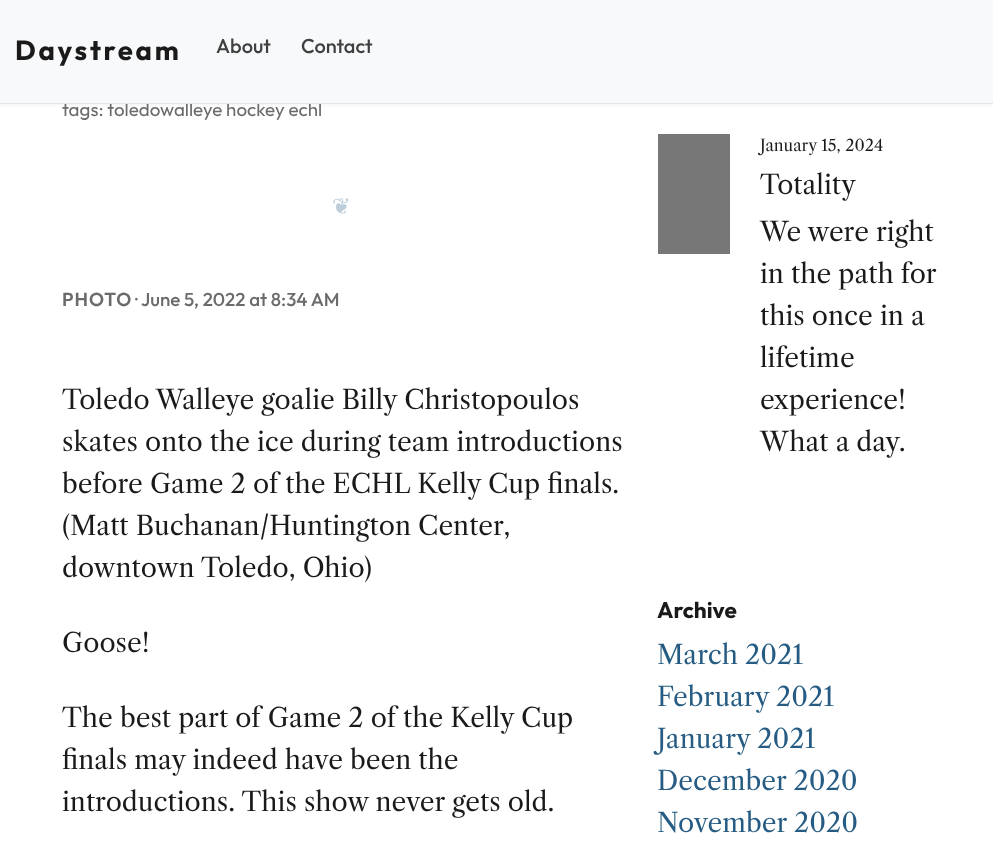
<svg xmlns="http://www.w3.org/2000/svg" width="993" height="852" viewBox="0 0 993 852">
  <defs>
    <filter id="blur1" x="-50%" y="-200%" width="200%" height="500%"><feGaussianBlur stdDeviation="2"/></filter>
  </defs>
  <rect width="100%" height="100%" fill="#ffffff"/>
  <rect x="0" y="1" width="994" height="104" fill="#000000" fill-opacity="0.05" filter="url(#blur1)"/>
  <text x="62" y="116" font-family="Outfit" font-size="18.75" fill="#6b6b6b">tags: toledowalleye hockey echl</text>
  <rect x="0" y="0" width="993" height="103" fill="#f8f9fa"/>
  <rect x="0" y="103" width="993" height="1" fill="#e5e5e5"/>
  <text x="15" y="60" font-family="Outfit" font-size="27.5" font-weight="bold" letter-spacing="2.75" fill="#1a1a1a">Daystream</text>
  <text x="216" y="53" font-family="Outfit" font-size="20" font-weight="500" fill="#404040">About</text>
  <text x="301" y="53" font-family="Outfit" font-size="20" font-weight="500" fill="#404040">Contact</text>
  <text x="332" y="214" font-family="DejaVu Sans" font-size="22.5" letter-spacing="11" fill="#beceda">❦</text>
  <text x="62" y="306" font-family="Outfit" font-size="18.75" font-weight="600" letter-spacing="1" fill="#6b6b6b">PHOTO</text>
  <text x="135" y="306" font-family="Outfit" font-size="18.75" font-weight="500" fill="#6b6b6b">· June 5, 2022 at 8:34 AM</text>
  <text x="62" y="409" font-family="Libre Caslon Text" font-size="26.25" fill="#1a1a1a">Toledo Walleye goalie Billy Christopoulos</text>
  <text x="62" y="451" font-family="Libre Caslon Text" font-size="26.25" fill="#1a1a1a">skates onto the ice during team introductions</text>
  <text x="62" y="493" font-family="Libre Caslon Text" font-size="26.25" fill="#1a1a1a">before Game 2 of the ECHL Kelly Cup finals.</text>
  <text x="62" y="535" font-family="Libre Caslon Text" font-size="26.25" fill="#1a1a1a">(Matt Buchanan/Huntington Center,</text>
  <text x="62" y="577" font-family="Libre Caslon Text" font-size="26.25" fill="#1a1a1a">downtown Toledo, Ohio)</text>
  <text x="62" y="652" font-family="Libre Caslon Text" font-size="26.25" fill="#1a1a1a">Goose!</text>
  <text x="62" y="727" font-family="Libre Caslon Text" font-size="26.25" fill="#1a1a1a">The best part of Game 2 of the Kelly Cup</text>
  <text x="62" y="769" font-family="Libre Caslon Text" font-size="26.25" fill="#1a1a1a">finals may indeed have been the</text>
  <text x="62" y="811" font-family="Libre Caslon Text" font-size="26.25" fill="#1a1a1a">introductions. This show never gets old.</text>
  <rect x="658" y="134" width="72" height="120" fill="#777777"/>
  <text x="760" y="151" font-family="Libre Caslon Text" font-size="16" fill="#1a1a1a">January 15, 2024</text>
  <text x="760" y="194" font-family="Libre Caslon Text" font-size="26.25" fill="#1a1a1a">Totality</text>
  <text x="760" y="241" font-family="Libre Caslon Text" font-size="26.25" fill="#1a1a1a">We were right</text>
  <text x="760" y="283" font-family="Libre Caslon Text" font-size="26.25" fill="#1a1a1a">in the path for</text>
  <text x="760" y="325" font-family="Libre Caslon Text" font-size="26.25" fill="#1a1a1a">this once in a</text>
  <text x="760" y="367" font-family="Libre Caslon Text" font-size="26.25" fill="#1a1a1a">lifetime</text>
  <text x="760" y="409" font-family="Libre Caslon Text" font-size="26.25" fill="#1a1a1a">experience!</text>
  <text x="760" y="451" font-family="Libre Caslon Text" font-size="26.25" fill="#1a1a1a">What a day.</text>
  <text x="657" y="618" font-family="Outfit" font-size="22.5" font-weight="bold" fill="#1a1a1a">Archive</text>
  <text x="657" y="664" font-family="Libre Caslon Text" font-size="26.25" fill="#265c83">March 2021</text>
  <text x="657" y="706" font-family="Libre Caslon Text" font-size="26.25" fill="#265c83">February 2021</text>
  <text x="657" y="748" font-family="Libre Caslon Text" font-size="26.25" fill="#265c83">January 2021</text>
  <text x="657" y="790" font-family="Libre Caslon Text" font-size="26.25" fill="#265c83">December 2020</text>
  <text x="657" y="832" font-family="Libre Caslon Text" font-size="26.25" fill="#265c83">November 2020</text>
</svg>
